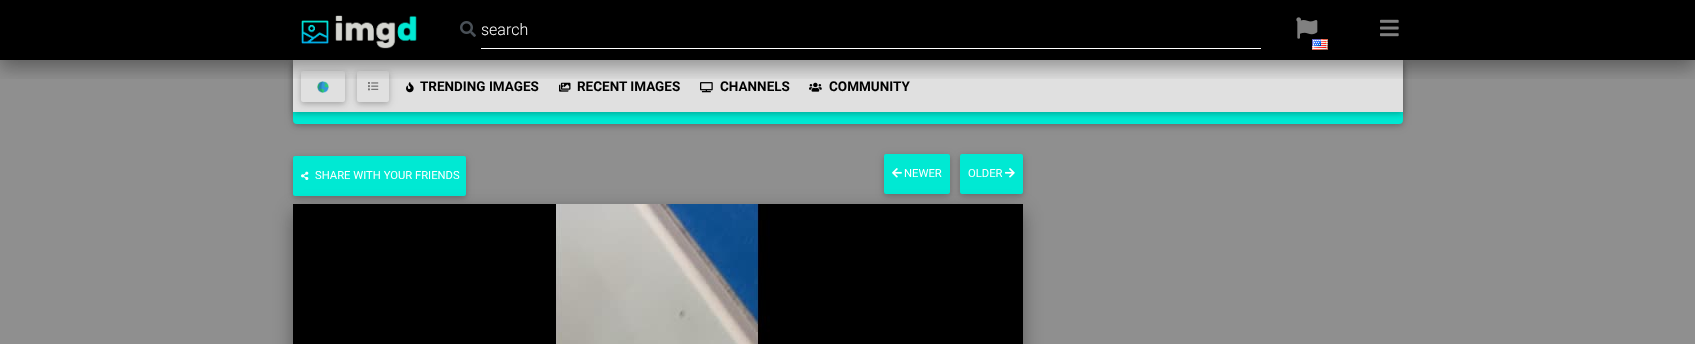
<svg xmlns="http://www.w3.org/2000/svg" width="1695" height="344" viewBox="0 0 1695 344">
  <defs>
    <filter id="blur1" x="-50%" y="-200%" width="200%" height="500%"><feGaussianBlur stdDeviation="5"/></filter>
    <filter id="blur2" x="-50%" y="-200%" width="200%" height="500%"><feGaussianBlur stdDeviation="2.5"/></filter>
    <clipPath id="clip1"><rect x="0" y="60" width="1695" height="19"/></clipPath>
    <filter id="blur3" x="-50%" y="-200%" width="200%" height="500%"><feGaussianBlur stdDeviation="10"/></filter>
    <filter id="blur4" x="-50%" y="-200%" width="200%" height="500%"><feGaussianBlur stdDeviation="8.5"/></filter>
  </defs>
  <rect width="100%" height="100%" fill="#8f8f8f"/>
  <rect x="0" y="0" width="1695" height="60" fill="#000000"/>
  <rect x="293" y="62" width="1110" height="64" rx="4" fill="#000000" fill-opacity="0.12" filter="url(#blur1)"/>
  <rect x="293" y="62" width="1110" height="64" rx="4" fill="#000000" fill-opacity="0.16" filter="url(#blur2)"/>
  <rect x="293" y="60" width="1110" height="64" rx="4" fill="#00e9d3"/>
  <rect x="293" y="62" width="1110" height="52" fill="#000000" fill-opacity="0.12" filter="url(#blur1)"/>
  <rect x="293" y="62" width="1110" height="52" fill="#000000" fill-opacity="0.16" filter="url(#blur2)"/>
  <rect x="293" y="60" width="1110" height="52" fill="#e0e0e0"/>
  <rect x="301" y="73" width="44" height="31" rx="2" fill="#000000" fill-opacity="0.12" filter="url(#blur1)"/>
  <rect x="301" y="73" width="44" height="31" rx="2" fill="#000000" fill-opacity="0.16" filter="url(#blur2)"/>
  <rect x="301" y="71" width="44" height="31" rx="2" fill="#e0e0e0"/>
  <image x="317" y="81" width="12" height="12" href="img7.png"/>
  <rect x="357" y="73" width="32" height="31" rx="2" fill="#000000" fill-opacity="0.12" filter="url(#blur1)"/>
  <rect x="357" y="73" width="32" height="31" rx="2" fill="#000000" fill-opacity="0.16" filter="url(#blur2)"/>
  <rect x="357" y="71" width="32" height="31" rx="2" fill="#e0e0e0"/>
  <image x="368" y="82" width="11" height="9" href="img8.png"/>
  <image x="406" y="82" width="8" height="11" href="img9.png"/>
  <image x="559" y="82" width="12" height="10" href="img10.png"/>
  <image x="700" y="82" width="13" height="11" href="img11.png"/>
  <image x="809" y="82" width="13" height="10" href="img12.png"/>
  <g clip-path="url(#clip1)">
    <rect x="0" y="6" width="1695" height="60" fill="#000000" fill-opacity="0.19" filter="url(#blur3)"/>
    <rect x="0" y="8" width="1695" height="60" fill="#000000" fill-opacity="0.2" filter="url(#blur4)"/>
  </g>
  <image x="301" y="20" width="28" height="24" href="img1.png"/>
  <image x="335" y="15" width="82" height="34" href="img2.png"/>
  <image x="460" y="21" width="16" height="16" href="img3.png"/>
  <rect x="481" y="48" width="780" height="1" fill="#ffffff"/>
  <text x="481" y="35" font-family="Roboto" font-size="16" font-weight="300" fill="#ffffff">search</text>
  <image x="1296" y="17" width="22" height="22" href="img4.png"/>
  <image x="1312" y="39" width="16" height="11" href="img5.png"/>
  <image x="1380" y="19" width="19" height="18" href="img6.png"/>
  <text x="420" y="91" font-family="Roboto" font-size="13.5" font-weight="bold" fill="#000000">TRENDING IMAGES</text>
  <text x="577" y="91" font-family="Roboto" font-size="13.5" font-weight="bold" fill="#000000">RECENT IMAGES</text>
  <text x="720" y="91" font-family="Roboto" font-size="13.5" font-weight="bold" fill="#000000">CHANNELS</text>
  <text x="829" y="91" font-family="Roboto" font-size="13.5" font-weight="bold" fill="#000000">COMMUNITY</text>
  <rect x="293" y="158" width="173" height="40" rx="2" fill="#000000" fill-opacity="0.12" filter="url(#blur1)"/>
  <rect x="293" y="158" width="173" height="40" rx="2" fill="#000000" fill-opacity="0.16" filter="url(#blur2)"/>
  <rect x="293" y="156" width="173" height="40" rx="2" fill="#00e9d3"/>
  <image x="301" y="171" width="8" height="9" href="img13.png"/>
  <text x="315" y="179" font-family="Roboto" font-size="11.25" fill="#ffffff">SHARE WITH YOUR FRIENDS</text>
  <rect x="884" y="156" width="66" height="40" rx="2" fill="#000000" fill-opacity="0.12" filter="url(#blur1)"/>
  <rect x="884" y="156" width="66" height="40" rx="2" fill="#000000" fill-opacity="0.16" filter="url(#blur2)"/>
  <rect x="884" y="154" width="66" height="40" rx="2" fill="#00e9d3"/>
  <image x="892" y="168" width="10" height="10" href="img14.png"/>
  <text x="904" y="177" font-family="Roboto" font-size="11.25" fill="#ffffff">NEWER</text>
  <rect x="960" y="156" width="63" height="40" rx="2" fill="#000000" fill-opacity="0.12" filter="url(#blur1)"/>
  <rect x="960" y="156" width="63" height="40" rx="2" fill="#000000" fill-opacity="0.16" filter="url(#blur2)"/>
  <rect x="960" y="154" width="63" height="40" rx="2" fill="#00e9d3"/>
  <text x="968" y="177" font-family="Roboto" font-size="11.25" fill="#ffffff">OLDER</text>
  <image x="1005" y="168" width="10" height="10" href="img15.png"/>
  <rect x="293" y="210" width="730" height="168" rx="4" fill="#000000" fill-opacity="0.19" filter="url(#blur3)"/>
  <rect x="293" y="212" width="730" height="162" rx="4" fill="#000000" fill-opacity="0.2" filter="url(#blur4)"/>
  <rect x="293" y="204" width="730" height="140" fill="#000000"/>
  <image x="556" y="204" width="214" height="140" href="img16.png"/>
</svg>
